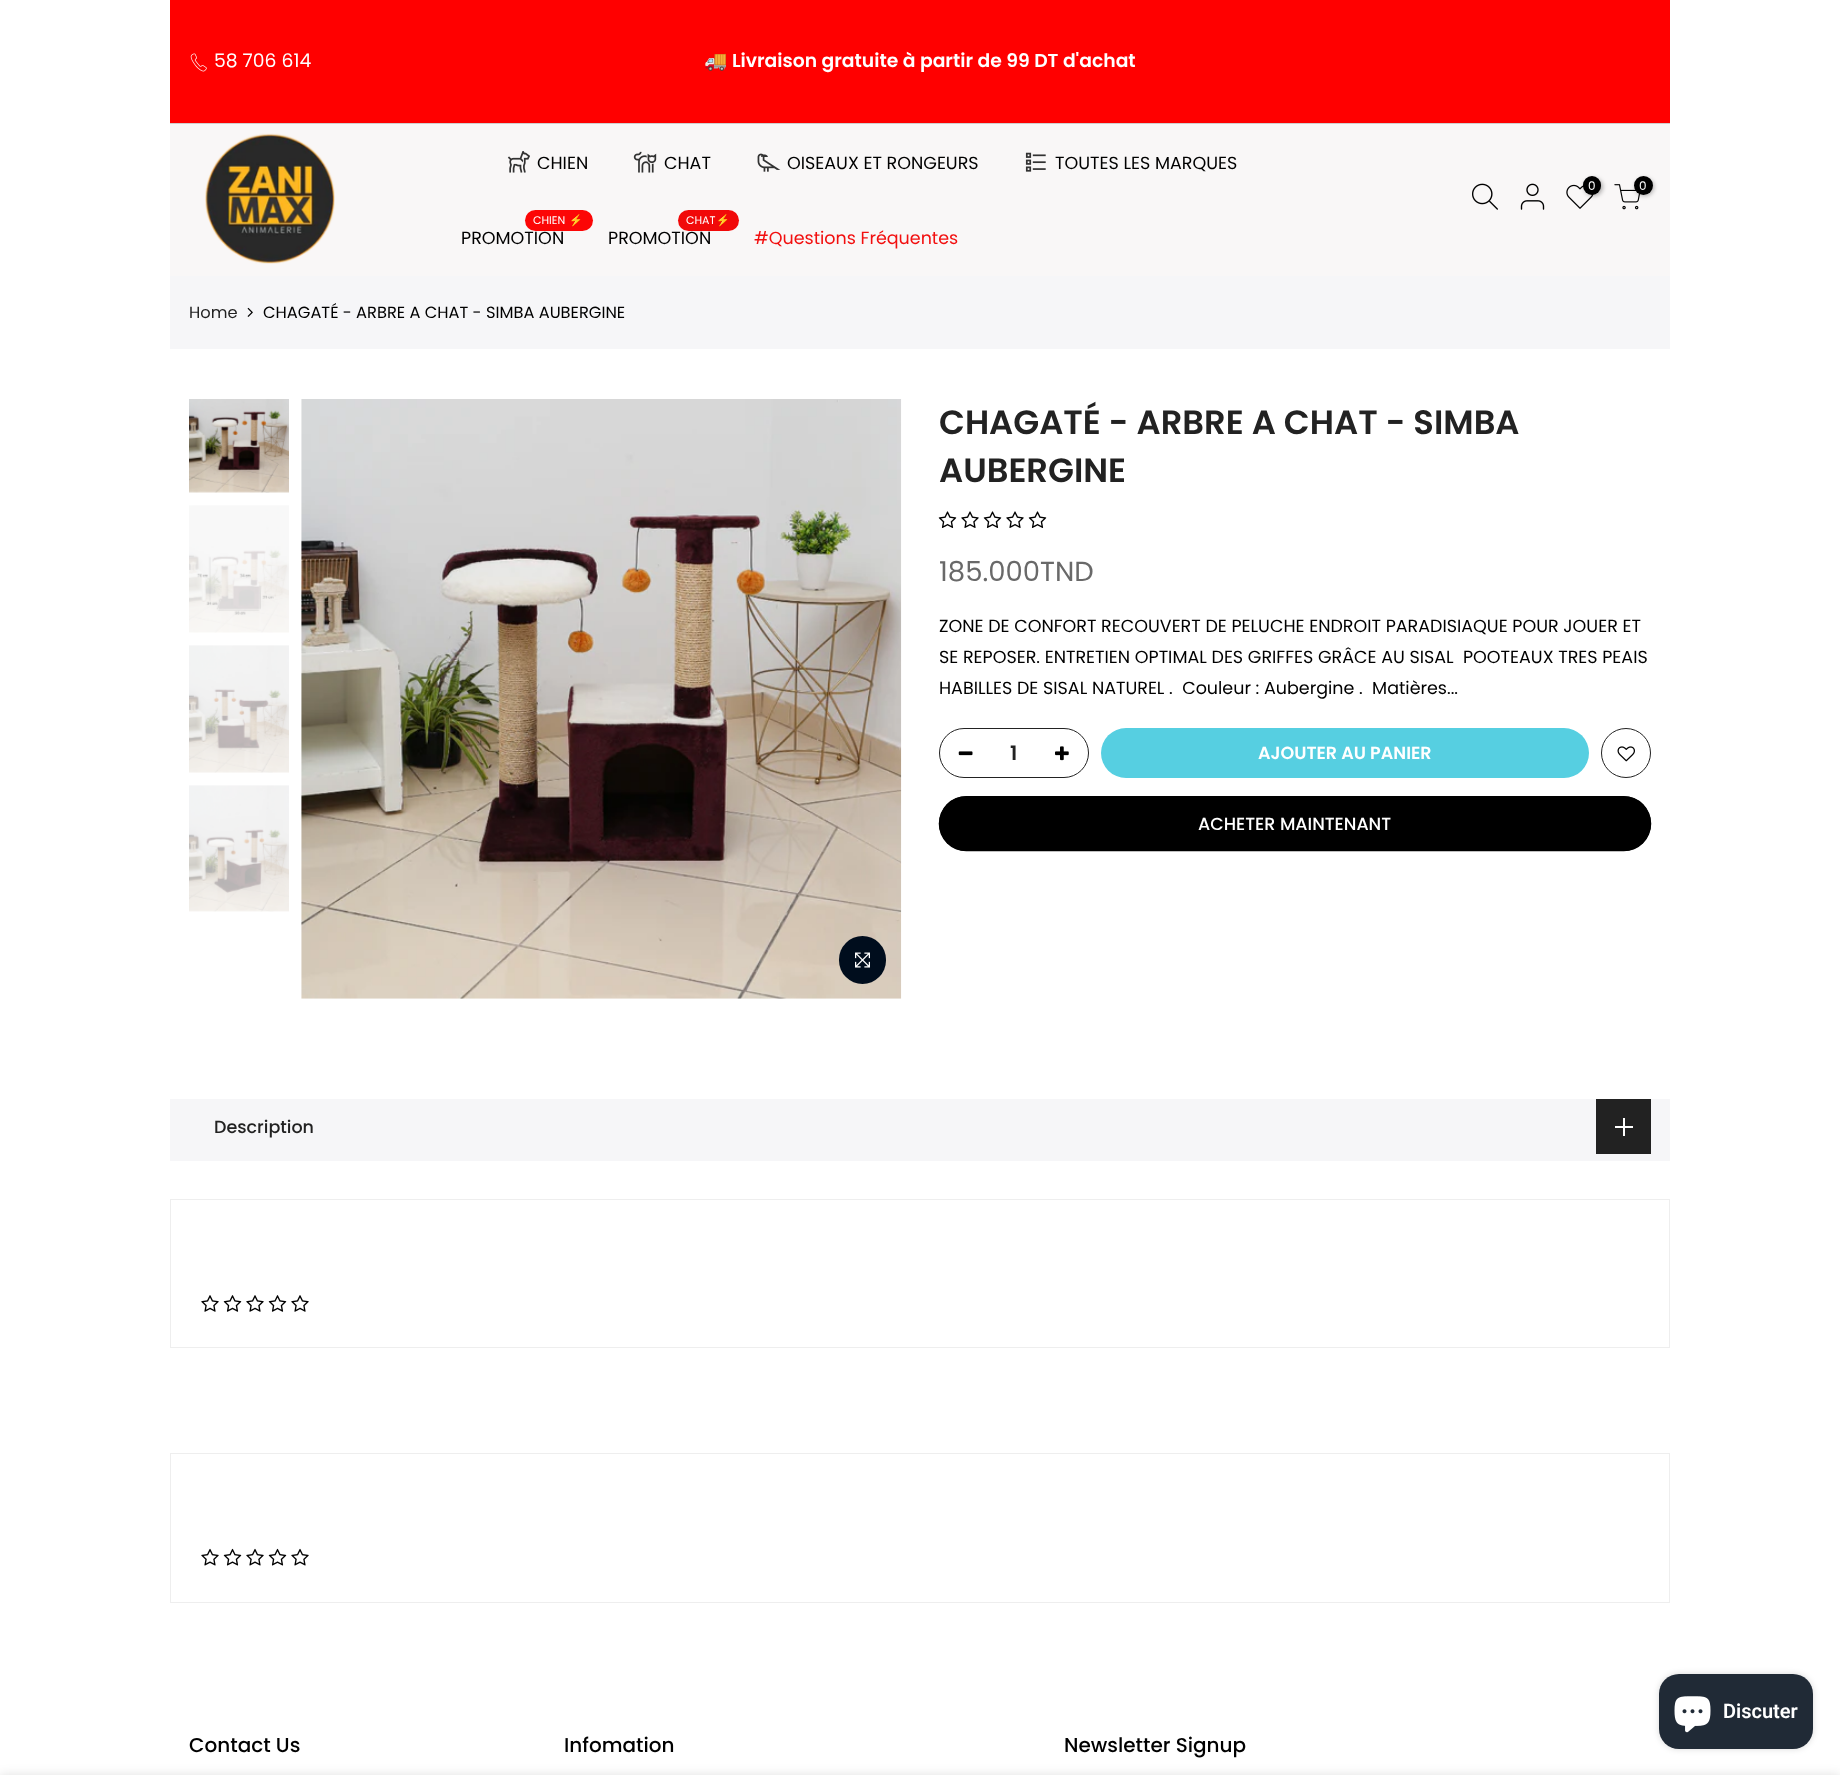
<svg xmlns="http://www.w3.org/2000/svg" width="1840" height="1775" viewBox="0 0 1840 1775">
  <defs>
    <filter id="blur1" x="-50%" y="-200%" width="200%" height="500%"><feGaussianBlur stdDeviation="2"/></filter>
    <filter id="blur2" x="-50%" y="-200%" width="200%" height="500%"><feGaussianBlur stdDeviation="3"/></filter>
    <filter id="blur3" x="-50%" y="-200%" width="200%" height="500%"><feGaussianBlur stdDeviation="5.5"/></filter>
  </defs>
  <rect width="100%" height="100%" fill="#ffffff"/>
  <rect x="170" y="0" width="1500" height="123" fill="#ff0000"/>
  <rect x="170" y="123" width="1500" height="1" fill="#d1cece"/>
  <image x="190" y="53" width="17" height="19" href="img1.png"/>
  <text x="214" y="67" font-family="Poppins" font-size="18.75" fill="#ffffff">58 706 614</text>
  <text x="704" y="67" font-family="Noto Color Emoji" font-size="18.75" font-weight="bold" fill="#ffffff">🚚</text>
  <text x="732" y="67" font-family="Poppins" font-size="18.75" font-weight="600" fill="#ffffff">Livraison gratuite à partir de 99 DT d'achat</text>
  <rect x="170" y="124" width="1500" height="152" fill="#f9f7f7"/>
  <image x="205" y="133" width="130" height="131" href="img2.png"/>
  <image x="507" y="151" width="23" height="22" href="img3.png"/>
  <text x="537" y="169" font-family="Poppins" font-size="17.5" fill="#000000">CHIEN</text>
  <image x="633" y="151" width="24" height="22" href="img4.png"/>
  <text x="664" y="169" font-family="Poppins" font-size="17.5" fill="#000000">CHAT</text>
  <image x="757" y="153" width="24" height="19" href="img5.png"/>
  <text x="787" y="169" font-family="Poppins" font-size="17.5" fill="#000000">OISEAUX ET RONGEURS</text>
  <image x="1025" y="152" width="21" height="20" href="img6.png"/>
  <text x="1055" y="169" font-family="Poppins" font-size="17.5" fill="#000000">TOUTES LES MARQUES</text>
  <rect x="525" y="210" width="68" height="21" rx="10.5" fill="#fc0606"/>
  <text x="533" y="224" font-family="Poppins" font-size="11" fill="#ffffff">CHIEN</text>
  <text x="569" y="224" font-family="Noto Color Emoji" font-size="11" fill="#ffffff">⚡️</text>
  <text x="461" y="244" font-family="Poppins" font-size="17.5" fill="#000000">PROMOTION</text>
  <rect x="678" y="210" width="61" height="21" rx="10.5" fill="#f10909"/>
  <text x="686" y="224" font-family="Poppins" font-size="11" fill="#ffffff">CHAT</text>
  <text x="716" y="224" font-family="Noto Color Emoji" font-size="11" fill="#ffffff">⚡️</text>
  <text x="608" y="244" font-family="Poppins" font-size="17.5" fill="#000000">PROMOTION</text>
  <text x="754" y="244" font-family="Poppins" font-size="17.5" fill="#f20f0f">#Questions Fréquentes</text>
  <image x="1472" y="183" width="26" height="27" href="img7.png"/>
  <image x="1520" y="183" width="25" height="27" href="img8.png"/>
  <image x="1566" y="184" width="28" height="25" href="img9.png"/>
  <rect x="1584" y="178" width="19" height="18" rx="9" fill="#000000" fill-opacity="0.3" filter="url(#blur1)"/>
  <rect x="1583" y="176" width="18" height="19" rx="9" fill="#000000"/>
  <text x="1588" y="190" font-family="Poppins" font-size="12" fill="#ffffff">0</text>
  <image x="1614" y="184" width="26" height="26" href="img10.png"/>
  <rect x="1635" y="178" width="19" height="18" rx="9" fill="#000000" fill-opacity="0.3" filter="url(#blur1)"/>
  <circle cx="1643.5" cy="185.5" r="9.5" fill="#000000"/>
  <text x="1639" y="190" font-family="Poppins" font-size="12" fill="#ffffff">0</text>
  <rect x="170" y="276" width="1500" height="73" fill="#f6f6f8"/>
  <text x="189" y="318" font-family="Poppins" font-size="16.25" fill="#222222">Home</text>
  <image x="247" y="307" width="6" height="10" href="img11.png"/>
  <text x="263" y="318" font-family="Poppins" font-size="16.25" fill="#000000">CHAGATÉ - ARBRE A CHAT - SIMBA AUBERGINE</text>
  <image x="189" y="399" width="100" height="94" href="img12.png"/>
  <image x="189" y="505" width="100" height="128" href="img13.png"/>
  <image x="189" y="645" width="100" height="128" href="img14.png"/>
  <image x="189" y="785" width="100" height="127" href="img15.png"/>
  <image x="301" y="399" width="601" height="600" href="img16.png"/>
  <rect x="839" y="936" width="47" height="48" rx="23.5" fill="#000d1d"/>
  <image x="855" y="952" width="15" height="16" href="img17.png"/>
  <text x="939" y="434" font-family="Poppins" font-size="33.75" font-weight="600" fill="#222222">CHAGATÉ - ARBRE A CHAT - SIMBA</text>
  <text x="939" y="482" font-family="Poppins" font-size="33.75" font-weight="600" fill="#222222">AUBERGINE</text>
  <image x="938" y="511" width="19" height="17" href="img18.png"/>
  <image x="961" y="511" width="18" height="17" href="img19.png"/>
  <image x="983" y="511" width="19" height="17" href="img18.png"/>
  <image x="1006" y="511" width="18" height="17" href="img19.png"/>
  <image x="1028" y="511" width="19" height="17" href="img18.png"/>
  <text x="939" y="581" font-family="Poppins" font-size="27.5" fill="#696969">185.000TND</text>
  <text x="939" y="632" font-family="Poppins" font-size="17.5" fill="#000000">ZONE DE CONFORT RECOUVERT DE PELUCHE ENDROIT PARADISIAQUE POUR JOUER ET</text>
  <text x="939" y="663" font-family="Poppins" font-size="17.5" fill="#000000" xml:space="preserve">SE REPOSER. ENTRETIEN OPTIMAL DES GRIFFES GRÂCE AU SISAL  POOTEAUX TRES PEAIS</text>
  <text x="939" y="694" font-family="Poppins" font-size="17.5" fill="#000000" xml:space="preserve">HABILLES DE SISAL NATUREL .  Couleur : Aubergine .  Matières...</text>
  <rect x="939.5" y="728.5" width="149" height="49" rx="24.5" fill="none" stroke="#222222"/>
  <text x="1010" y="760" font-family="Poppins" font-size="20" font-weight="600" fill="#222222">1</text>
  <image x="958" y="751" width="15" height="5" href="img20.png"/>
  <image x="1055" y="746" width="14" height="15" href="img21.png"/>
  <rect x="1101" y="728" width="488" height="50" rx="25" fill="#56cfe1"/>
  <text x="1258" y="759" font-family="Poppins" font-size="17.5" font-weight="600" fill="#ffffff">AJOUTER AU PANIER</text>
  <circle cx="1626" cy="753" r="24.5" fill="none" stroke="#222222"/>
  <image x="1617" y="746" width="18" height="16" href="img22.png"/>
  <path d="M1618.5 746C1621 743.5 1625 742.5 1628.5 743.5C1641 746 1639 764.5 1626 764.5C1623.5 764.5 1620.5 763 1618.5 761.5M1618.5 761.5C1614.5 757 1614.5 750.5 1618.5 746" fill="none" stroke="#ffffff" stroke-width="1.2"/>
  <image x="938" y="796" width="714" height="56" href="img27.png"/>
  <rect x="939" y="796" width="712" height="55" rx="27.5" fill="#000000"/>
  <text x="1198" y="830" font-family="Poppins" font-size="17.5" font-weight="500" fill="#ffffff">ACHETER MAINTENANT</text>
  <rect x="170" y="1099" width="1500" height="62" fill="#f6f6f8"/>
  <text x="214" y="1133" font-family="Poppins" font-size="17.5" font-weight="500" fill="#222222">Description</text>
  <rect x="1596" y="1099" width="55" height="55" fill="#222222"/>
  <rect x="1623" y="1118" width="2" height="18" fill="#ffffff"/>
  <rect x="1615" y="1126" width="18" height="2" fill="#ffffff"/>
  <rect x="170.5" y="1199.5" width="1499" height="148" fill="none" stroke="#eeeeee"/>
  <image x="201" y="1295" width="18" height="17" href="img23.png"/>
  <image x="223" y="1295" width="19" height="17" href="img24.png"/>
  <image x="246" y="1295" width="18" height="17" href="img23.png"/>
  <image x="268" y="1295" width="19" height="17" href="img24.png"/>
  <image x="291" y="1295" width="18" height="17" href="img23.png"/>
  <rect x="170.5" y="1453.5" width="1499" height="149" fill="none" stroke="#eeeeee"/>
  <image x="201" y="1548" width="18" height="18" href="img25.png"/>
  <image x="223" y="1548" width="19" height="18" href="img26.png"/>
  <image x="246" y="1548" width="18" height="18" href="img25.png"/>
  <image x="268" y="1548" width="19" height="18" href="img26.png"/>
  <image x="291" y="1548" width="18" height="18" href="img25.png"/>
  <text x="189" y="1752" font-family="Poppins" font-size="20" font-weight="500" fill="#000000">Contact Us</text>
  <text x="564" y="1752" font-family="Poppins" font-size="20" font-weight="500" fill="#000000">Infomation</text>
  <text x="1064" y="1752" font-family="Poppins" font-size="20" font-weight="500" fill="#000000">Newsletter Signup</text>
  <rect x="1659" y="1674" width="154" height="75" rx="20" fill="#000000" fill-opacity="0.15" filter="url(#blur2)"/>
  <rect x="1659" y="1674" width="154" height="75" rx="20" fill="#202a36"/>
  <image x="1674" y="1696" width="37" height="37" href="img28.png"/>
  <text x="1723" y="1718" font-family="Roboto" font-size="20" font-weight="600" fill="#ffffff">Discuter</text>
  <rect x="0" y="1775" width="1840" height="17" fill="#000000" fill-opacity="0.12" filter="url(#blur3)"/>
</svg>
